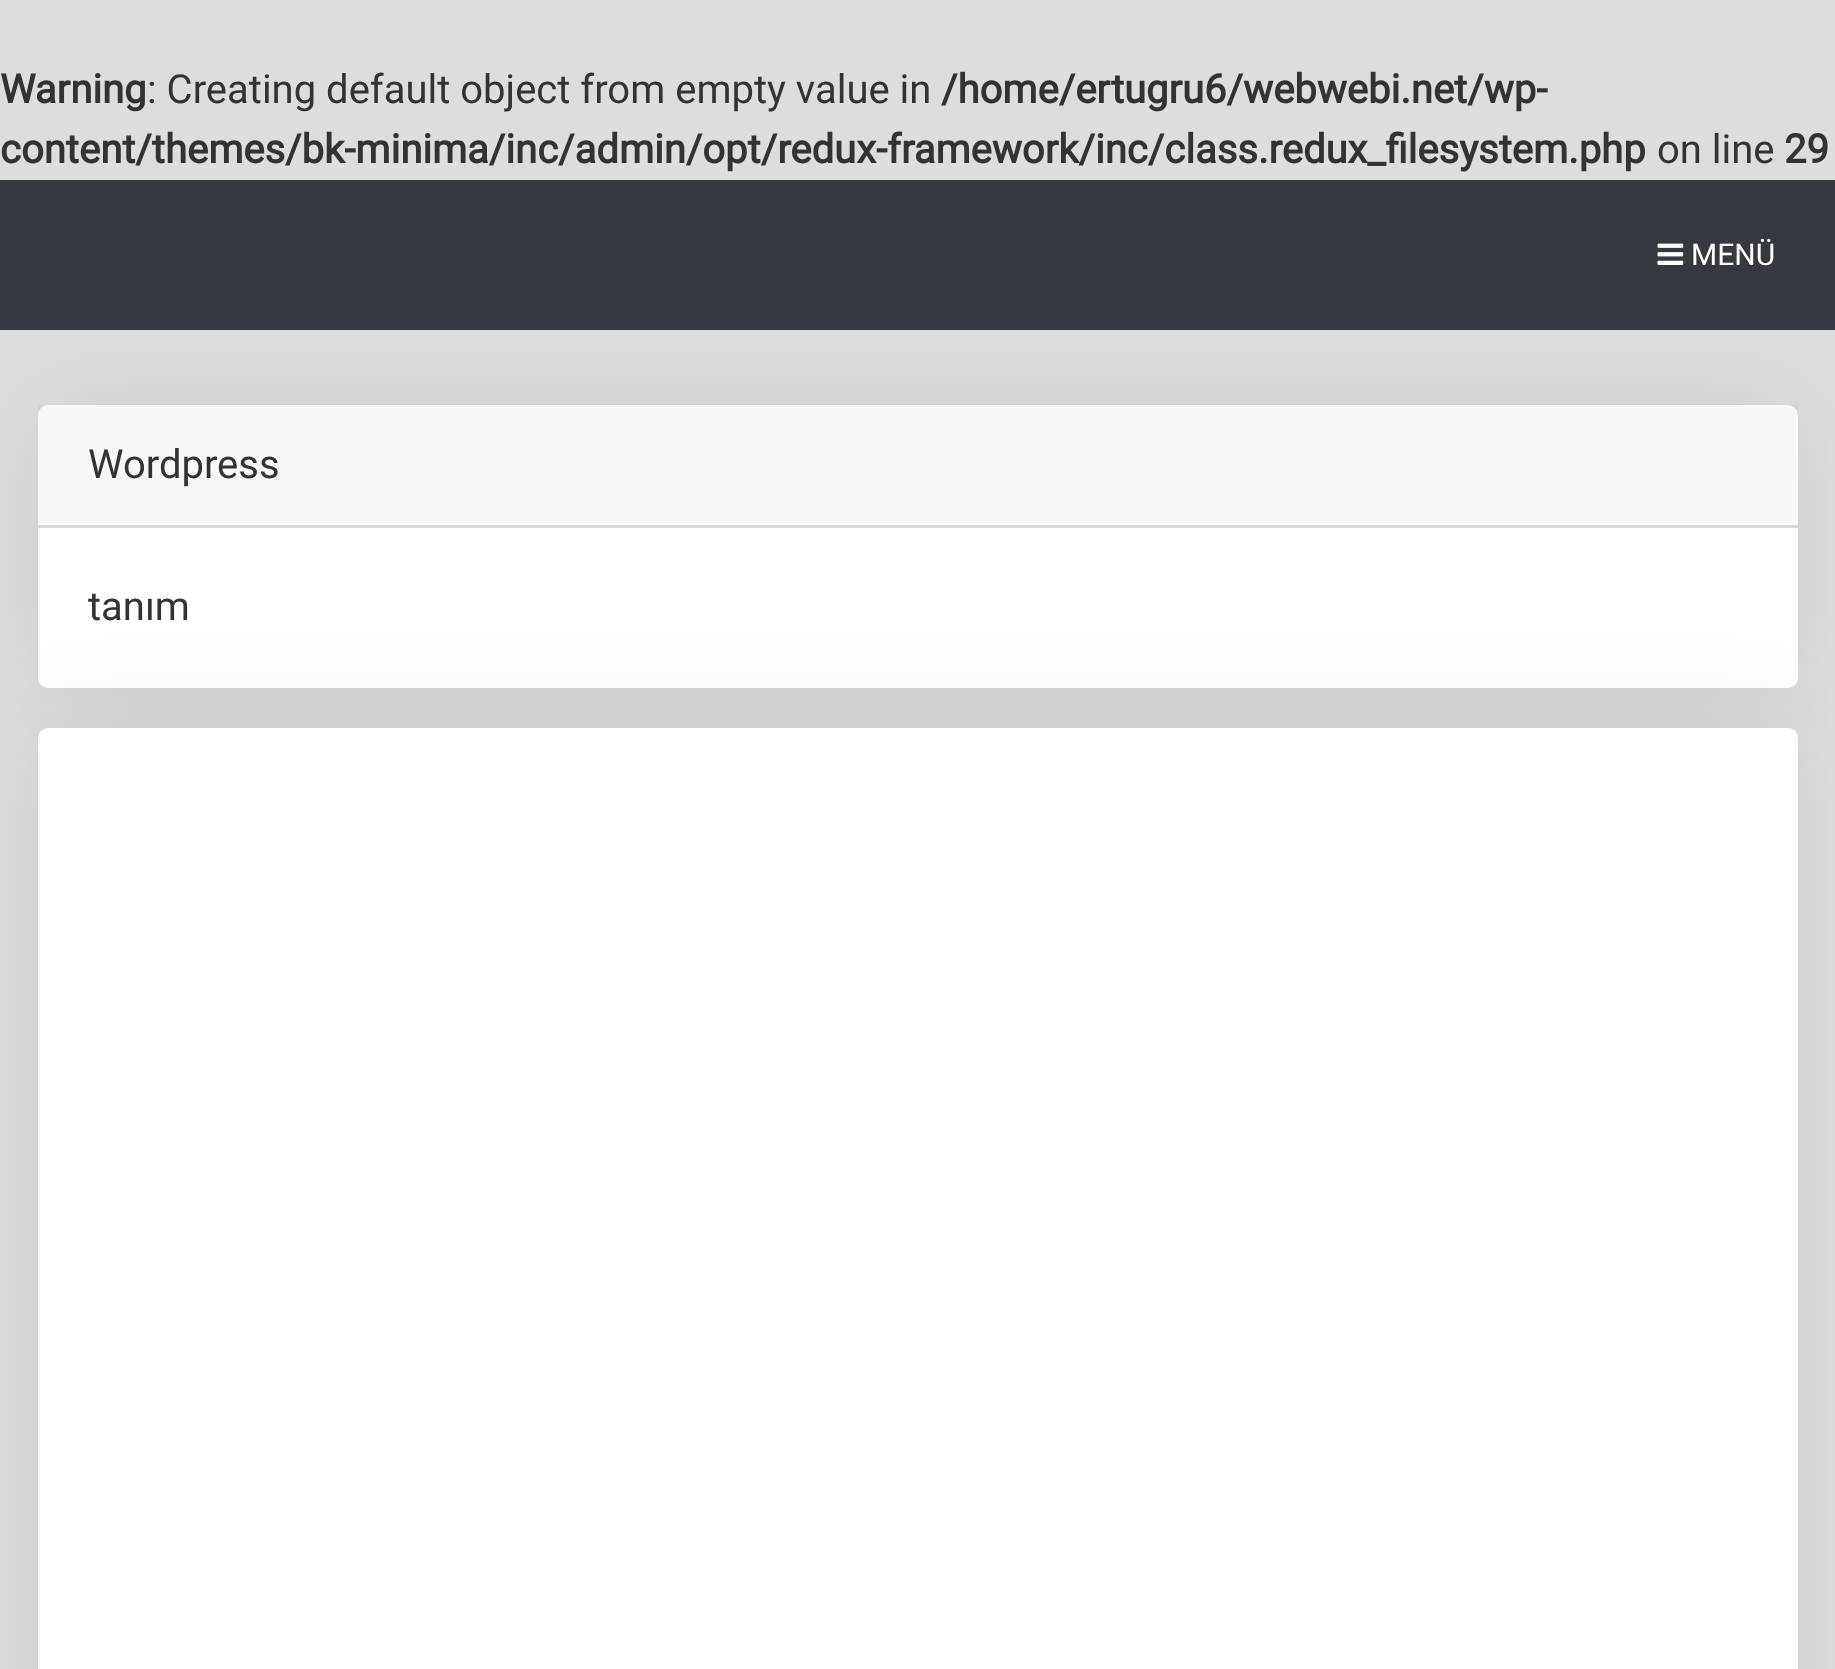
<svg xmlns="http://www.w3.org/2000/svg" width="1835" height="1669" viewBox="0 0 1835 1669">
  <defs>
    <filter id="blur1" x="-50%" y="-200%" width="200%" height="500%"><feGaussianBlur stdDeviation="50"/></filter>
  </defs>
  <rect width="100%" height="100%" fill="#dddddd"/>
  <text x="0" y="103" font-family="Roboto" font-size="40" font-weight="bold" fill="#333333">Warning</text>
  <text x="147" y="103" font-family="Roboto" font-size="40" fill="#333333">: Creating default object from empty value in</text>
  <text x="941" y="103" font-family="Roboto" font-size="40" font-weight="bold" fill="#333333">/home/ertugru6/webwebi.net/wp-</text>
  <text x="0" y="163" font-family="Roboto" font-size="40" font-weight="bold" fill="#333333">content/themes/bk-minima/inc/admin/opt/redux-framework/inc/class.redux_filesystem.php</text>
  <text x="1657" y="163" font-family="Roboto" font-size="40" fill="#333333">on line</text>
  <text x="1784" y="163" font-family="Roboto" font-size="40" font-weight="bold" fill="#333333">29</text>
  <rect x="0" y="180" width="1835" height="150" fill="#343a40"/>
  <image x="1657" y="243" width="27" height="22" href="img1.png"/>
  <text x="1691" y="265" font-family="Roboto" font-size="30" fill="#ffffff">MENÜ</text>
  <rect x="38" y="405" width="1760" height="283" rx="10" fill="#170420" fill-opacity="0.08" filter="url(#blur1)"/>
  <rect x="38" y="405" width="1760" height="283" rx="10" fill="#ffffff"/>
  <rect x="38" y="405" width="1760" height="120" fill="#000000" fill-opacity="0.03"/>
  <rect x="38" y="525" width="1760" height="3" fill="#d8d8d8"/>
  <text x="88" y="478" font-family="Roboto" font-size="40" fill="#333333">Wordpress</text>
  <text x="88" y="620" font-family="Roboto" font-size="40" fill="#333333">tanım</text>
  <rect x="38" y="728" width="1760" height="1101" rx="10" fill="#170420" fill-opacity="0.08" filter="url(#blur1)"/>
  <rect x="38" y="728" width="1760" height="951" rx="10" fill="#ffffff"/>
</svg>
